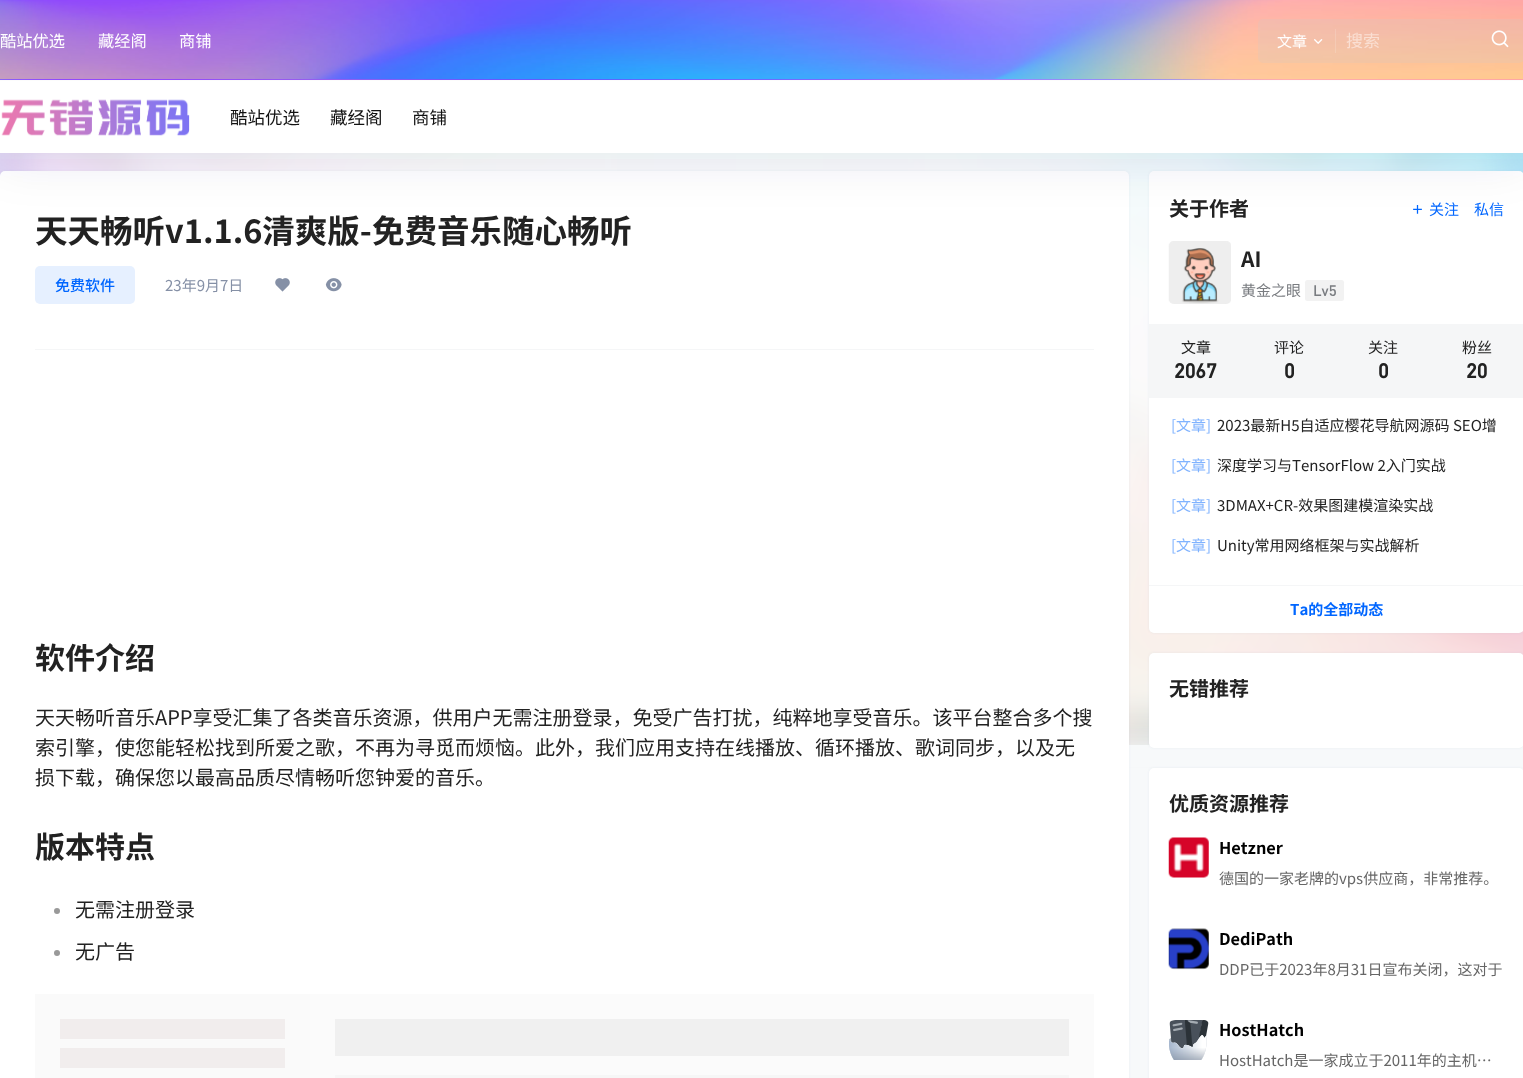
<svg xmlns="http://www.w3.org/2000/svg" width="1523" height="1078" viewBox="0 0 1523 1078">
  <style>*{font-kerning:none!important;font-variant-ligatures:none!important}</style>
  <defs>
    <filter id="blur1" x="-50%" y="-200%" width="200%" height="500%"><feGaussianBlur stdDeviation="12.5"/></filter>
    <filter id="blur2" x="-50%" y="-200%" width="200%" height="500%"><feGaussianBlur stdDeviation="1"/></filter>
    <filter id="blur3" x="-50%" y="-200%" width="200%" height="500%"><feGaussianBlur stdDeviation="25"/></filter>
  </defs>
  <rect width="100%" height="100%" fill="#f7f9fa"/>
  <image x="0" y="153" width="1523" height="592" href="img1.png"/>
  <rect x="-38" y="-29" width="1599" height="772" fill="#f7f9fa" fill-opacity="0.15" filter="url(#blur1)"/>
  <rect x="0" y="171" width="1129" height="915" rx="5" fill="#627c99" fill-opacity="0.1" filter="url(#blur2)"/>
  <rect x="0" y="171" width="1129" height="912" rx="5" fill="#ffffff"/>
  <rect x="1149" y="171" width="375" height="462" rx="5" fill="#627c99" fill-opacity="0.1" filter="url(#blur2)"/>
  <rect x="1149" y="171" width="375" height="462" rx="5" fill="#ffffff"/>
  <image x="1413" y="205" width="9" height="9" href="img8.png"/>
  <rect x="0" y="6" width="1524" height="153" fill="#113a5d" fill-opacity="0.1" filter="url(#blur3)"/>
  <image x="0" y="0" width="1523" height="80" href="img2.png"/>
  <text x="0" y="47" font-family="Noto Sans CJK SC" font-size="16.25" fill="#ffffff">酷站优选</text>
  <text x="98" y="47" font-family="Noto Sans CJK SC" font-size="16.25" fill="#ffffff">藏经阁</text>
  <text x="179" y="47" font-family="Noto Sans CJK SC" font-size="16.25" fill="#ffffff">商铺</text>
  <rect x="1258" y="19" width="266" height="44" rx="5" fill="#cccccc" fill-opacity="0.21"/>
  <rect x="1335" y="29" width="1" height="24" fill="#ffffff" fill-opacity="0.16"/>
  <text x="1277" y="47" font-family="Noto Sans CJK SC" font-size="15" fill="#ffffff">文章</text>
  <image x="1314" y="39" width="9" height="5" href="img3.png"/>
  <text x="1346" y="47" font-family="Noto Sans CJK SC" font-size="17" fill="#fadfd3">搜索</text>
  <image x="1491" y="30" width="18" height="18" href="img4.png"/>
  <rect x="0" y="81" width="1523" height="72" fill="#ffffff"/>
  <rect x="0" y="80" width="1523" height="1" fill="#fcfcfc"/>
  <image x="1" y="99" width="189" height="37" href="img5.png"/>
  <text x="230" y="124" font-family="Noto Sans CJK SC" font-size="17.5" fill="#121212">酷站优选</text>
  <text x="330" y="124" font-family="Noto Sans CJK SC" font-size="17.5" fill="#121212">藏经阁</text>
  <text x="412" y="124" font-family="Noto Sans CJK SC" font-size="17.5" fill="#121212">商铺</text>
  <rect x="35" y="349" width="1059" height="1" fill="#f5f6f7"/>
  <text x="35" y="243" font-family="Noto Sans CJK SC" font-size="32.5" font-weight="bold" fill="#222222">天天畅听v1.1.6清爽版-免费音乐随心畅听</text>
  <rect x="35" y="266" width="100" height="38" rx="5" fill="#e6f0ff"/>
  <text x="55" y="291" font-family="Noto Sans CJK SC" font-size="15" font-weight="500" fill="#0066ff">免费软件</text>
  <text x="165" y="291" font-family="Noto Sans CJK SC" font-size="15" fill="#8590a6">23年9月7日</text>
  <image x="275" y="278" width="15" height="14" href="img6.png"/>
  <image x="325" y="278" width="17" height="14" href="img7.png"/>
  <text x="35" y="669" font-family="Noto Sans CJK SC" font-size="30" font-weight="bold" fill="#222222">软件介绍</text>
  <text x="35" y="725" font-family="Noto Sans CJK SC" font-size="20" fill="#222222">天天畅听音乐APP享受汇集了各类音乐资源，供用户无需注册登录，免受广告打扰，纯粹地享受音乐。该平台整合多个搜</text>
  <text x="35" y="755" font-family="Noto Sans CJK SC" font-size="20" fill="#222222">索引擎，使您能轻松找到所爱之歌，不再为寻觅而烦恼。此外，我们应用支持在线播放、循环播放、歌词同步，以及无</text>
  <text x="35" y="785" font-family="Noto Sans CJK SC" font-size="20" fill="#222222">损下载，确保您以最高品质尽情畅听您钟爱的音乐。</text>
  <text x="35" y="858" font-family="Noto Sans CJK SC" font-size="30" font-weight="bold" fill="#222222">版本特点</text>
  <circle cx="57" cy="911" r="3" fill="#999999"/>
  <text x="75" y="917" font-family="Noto Sans CJK SC" font-size="20" fill="#222222">无需注册登录</text>
  <circle cx="57" cy="953" r="3" fill="#999999"/>
  <text x="75" y="959" font-family="Noto Sans CJK SC" font-size="20" fill="#222222">无广告</text>
  <rect x="35" y="994" width="275" height="84" fill="#fafafa"/>
  <rect x="60" y="1019" width="225" height="20" fill="#f1eded"/>
  <rect x="60" y="1048" width="225" height="20" fill="#f1eded"/>
  <rect x="310" y="994" width="784" height="84" fill="#fbfbfb"/>
  <rect x="335" y="1019" width="734" height="37" fill="#f0f0f0"/>
  <rect x="335" y="1075" width="734" height="3" fill="#f6f6f6"/>
  <text x="1169" y="216" font-family="Noto Sans CJK SC" font-size="20" font-weight="bold" fill="#222222">关于作者</text>
  <text x="1429" y="215" font-family="Noto Sans CJK SC" font-size="15" fill="#0066ff">关注</text>
  <text x="1474" y="215" font-family="Noto Sans CJK SC" font-size="15" fill="#0066ff">私信</text>
  <rect x="1169" y="241" width="62" height="63" rx="5" fill="#eeeeee"/>
  <image x="1168" y="241" width="63" height="63" href="img9.png"/>
  <text x="1241" y="267" font-family="Noto Sans CJK SC" font-size="21" font-weight="bold" fill="#222222">AI</text>
  <text x="1241" y="296" font-family="Noto Sans CJK SC" font-size="15" fill="#797c80">黄金之眼</text>
  <rect x="1305" y="280" width="39" height="21" rx="2.5" fill="#f2f2f2"/>
  <text x="1313" y="296" font-family="DIN" font-size="15" font-weight="500" fill="#797c80">Lv5</text>
  <rect x="1149" y="324" width="374" height="74" fill="#f5f6f7"/>
  <text x="1181" y="353" font-family="Noto Sans CJK SC" font-size="15" fill="#222222">文章</text>
  <text x="1174" y="378" font-family="DIN" font-size="20" font-weight="bold" fill="#222222">2067</text>
  <text x="1274" y="353" font-family="Noto Sans CJK SC" font-size="15" fill="#222222">评论</text>
  <text x="1284" y="378" font-family="DIN" font-size="20" font-weight="bold" fill="#222222">0</text>
  <text x="1368" y="353" font-family="Noto Sans CJK SC" font-size="15" fill="#222222">关注</text>
  <text x="1378" y="378" font-family="DIN" font-size="20" font-weight="bold" fill="#222222">0</text>
  <text x="1462" y="353" font-family="Noto Sans CJK SC" font-size="15" fill="#222222">粉丝</text>
  <text x="1466" y="378" font-family="DIN" font-size="20" font-weight="bold" fill="#222222">20</text>
  <text x="1171" y="431" font-family="Noto Sans CJK SC" font-size="15" fill="#80b3ff">[文章]</text>
  <text x="1217" y="431" font-family="Noto Sans CJK SC" font-size="15" fill="#222222">2023最新H5自适应樱花导航网源码 SEO增</text>
  <text x="1171" y="471" font-family="Noto Sans CJK SC" font-size="15" fill="#80b3ff">[文章]</text>
  <text x="1217" y="471" font-family="Noto Sans CJK SC" font-size="15" fill="#222222">深度学习与TensorFlow 2入门实战</text>
  <text x="1171" y="511" font-family="Noto Sans CJK SC" font-size="15" fill="#80b3ff">[文章]</text>
  <text x="1217" y="511" font-family="Noto Sans CJK SC" font-size="15" fill="#222222">3DMAX+CR-效果图建模渲染实战</text>
  <text x="1171" y="551" font-family="Noto Sans CJK SC" font-size="15" fill="#80b3ff">[文章]</text>
  <text x="1217" y="551" font-family="Noto Sans CJK SC" font-size="15" fill="#222222">Unity常用网络框架与实战解析</text>
  <rect x="1149" y="585" width="374" height="1" fill="#f5f6f7"/>
  <text x="1290" y="615" font-family="Noto Sans CJK SC" font-size="15" font-weight="bold" fill="#0066ff">Ta的全部动态</text>
  <rect x="1149" y="653" width="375" height="95" rx="5" fill="#627c99" fill-opacity="0.1" filter="url(#blur2)"/>
  <rect x="1149" y="653" width="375" height="95" rx="5" fill="#ffffff"/>
  <text x="1169" y="696" font-family="Noto Sans CJK SC" font-size="20" font-weight="bold" fill="#222222">无错推荐</text>
  <rect x="1149" y="768" width="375" height="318" rx="5" fill="#627c99" fill-opacity="0.1" filter="url(#blur2)"/>
  <rect x="1149" y="768" width="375" height="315" rx="5" fill="#ffffff"/>
  <text x="1169" y="811" font-family="Noto Sans CJK SC" font-size="20" font-weight="bold" fill="#222222">优质资源推荐</text>
  <image x="1168" y="837" width="41" height="41" href="img10.png"/>
  <text x="1219" y="854" font-family="Noto Sans CJK SC" font-size="16.25" font-weight="bold" fill="#000000">Hetzner</text>
  <text x="1219" y="884" font-family="Noto Sans CJK SC" font-size="15" fill="#666666">德国的一家老牌的vps供应商，非常推荐。</text>
  <image x="1168" y="928" width="41" height="42" href="img11.png"/>
  <text x="1219" y="945" font-family="Noto Sans CJK SC" font-size="16.25" font-weight="bold" fill="#000000">DediPath</text>
  <text x="1219" y="975" font-family="Noto Sans CJK SC" font-size="15" fill="#666666">DDP已于2023年8月31日宣布关闭，这对于</text>
  <image x="1169" y="1020" width="40" height="40" href="img12.png"/>
  <text x="1219" y="1036" font-family="Noto Sans CJK SC" font-size="16.25" font-weight="bold" fill="#000000">HostHatch</text>
  <text x="1219" y="1066" font-family="Noto Sans CJK SC" font-size="15" fill="#666666">HostHatch是一家成立于2011年的主机…</text>
</svg>
